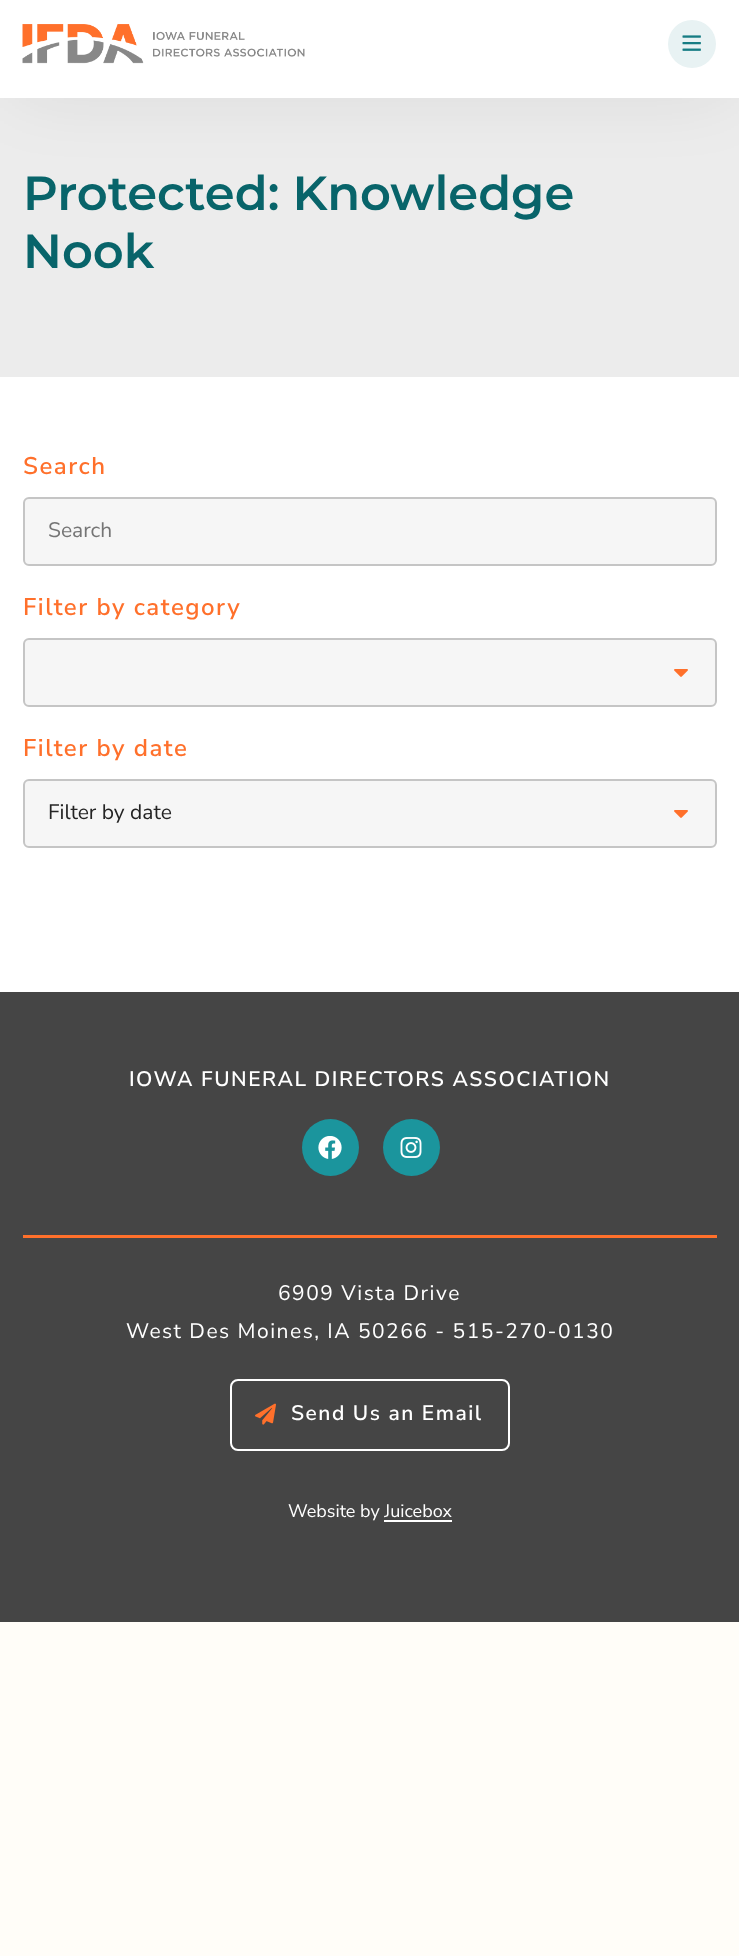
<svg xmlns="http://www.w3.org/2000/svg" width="739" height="1956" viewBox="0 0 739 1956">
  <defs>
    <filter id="blur1" x="-50%" y="-200%" width="200%" height="500%"><feGaussianBlur stdDeviation="38"/></filter>
  </defs>
  <rect width="100%" height="100%" fill="#fffdf8"/>
  <rect x="0" y="98" width="739" height="279" fill="#ececec"/>
  <rect x="17" y="15" width="712" height="71" fill="#000000" fill-opacity="0.1" filter="url(#blur1)"/>
  <rect x="0" y="0" width="739" height="98" fill="#ffffff"/>
  <image x="22" y="24" width="283" height="40" href="img1.png"/>
  <circle cx="692" cy="44" r="24" fill="#e8f2f3"/>
  <image x="682" y="35" width="19" height="16" href="img2.png"/>
  <rect x="0" y="377" width="739" height="615" fill="#ffffff"/>
  <text x="23" y="210" font-family="Montserrat" font-size="48" font-weight="600" fill="#08646a">Protected: Knowledge</text>
  <text x="23" y="268" font-family="Montserrat" font-size="48" font-weight="600" fill="#08646a">Nook</text>
  <text x="23" y="474" font-family="Nunito Sans" font-size="24" font-weight="600" letter-spacing="1.5" fill="#ff702b">Search</text>
  <rect x="24" y="498" width="692" height="67" rx="5" fill="#f6f6f6" stroke="#c5c5c5" stroke-width="2"/>
  <text x="48" y="537" font-family="Nunito Sans" font-size="21" fill="#757575">Search</text>
  <text x="23" y="615" font-family="Nunito Sans" font-size="24" font-weight="600" letter-spacing="1.5" fill="#ff702b">Filter by category</text>
  <rect x="24" y="639" width="692" height="67" rx="5" fill="#f6f6f6" stroke="#c5c5c5" stroke-width="2"/>
  <image x="674" y="669" width="14" height="8" href="img3.png"/>
  <text x="23" y="756" font-family="Nunito Sans" font-size="24" font-weight="600" letter-spacing="1.5" fill="#ff702b">Filter by date</text>
  <rect x="24" y="780" width="692" height="67" rx="5" fill="#f6f6f6" stroke="#c5c5c5" stroke-width="2"/>
  <text x="48" y="819" font-family="Nunito Sans" font-size="21" fill="#242424">Filter by date</text>
  <image x="674" y="810" width="14" height="8" href="img3.png"/>
  <rect x="0" y="992" width="739" height="630" fill="#454545"/>
  <text x="129" y="1086" font-family="Nunito Sans" font-size="21" font-weight="600" letter-spacing="1.5" fill="#ffffff">IOWA FUNERAL DIRECTORS ASSOCIATION</text>
  <circle cx="330.5" cy="1147.5" r="28.5" fill="#1b959d"/>
  <image x="318" y="1136" width="24" height="23" href="img4.png"/>
  <circle cx="411.5" cy="1147.5" r="28.5" fill="#1b959d"/>
  <image x="400" y="1137" width="22" height="21" href="img5.png"/>
  <rect x="23" y="1235" width="694" height="3" fill="#ff702b"/>
  <text x="278" y="1300" font-family="Nunito Sans" font-size="21" letter-spacing="1.5" fill="#ffffff">6909 Vista Drive</text>
  <text x="126" y="1338" font-family="Nunito Sans" font-size="21" letter-spacing="1.5" fill="#ffffff">West Des Moines, IA 50266 - 515-270-0130</text>
  <rect x="231" y="1380" width="278" height="70" rx="7" fill="none" stroke="#ffffff" stroke-width="2"/>
  <image x="255" y="1403" width="21" height="22" href="img6.png"/>
  <text x="291" y="1420" font-family="Nunito Sans" font-size="21" font-weight="600" letter-spacing="1.5" fill="#ffffff">Send Us an Email</text>
  <text x="288" y="1517" font-family="Nunito Sans" font-size="18" fill="#ffffff">Website by Juicebox</text>
  <rect x="384" y="1520" width="68" height="2" fill="#ffffff"/>
</svg>
